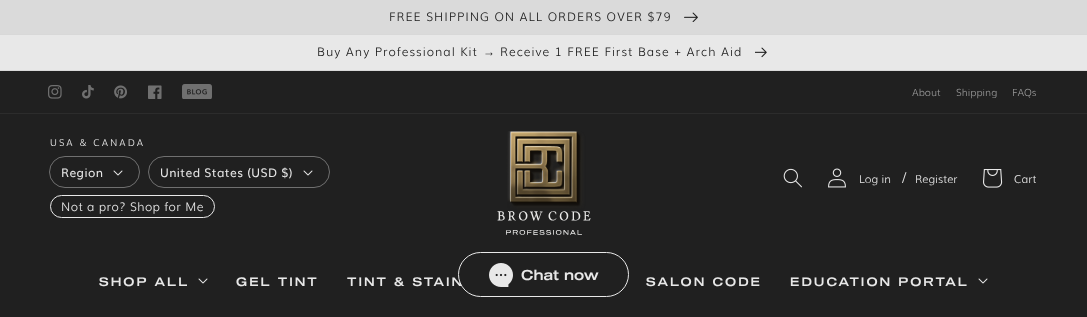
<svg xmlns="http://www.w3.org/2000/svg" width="1087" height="317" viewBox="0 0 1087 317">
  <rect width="100%" height="100%" fill="#202020"/>
  <rect x="0" y="34" width="1087" height="1" fill="#d8d8d8"/>
  <rect x="0" y="0" width="1087" height="34" fill="#dadada"/>
  <text x="389" y="21" font-family="Muli" font-size="12" font-weight="300" letter-spacing="1" fill="#202020">FREE SHIPPING ON ALL ORDERS OVER $79</text>
  <image x="684" y="12" width="14" height="10" href="img1.png"/>
  <rect x="0" y="35" width="1087" height="35" fill="#e8e8e8"/>
  <rect x="0" y="70" width="1087" height="1" fill="#d8d8d8"/>
  <text x="317" y="56" font-family="Muli" font-size="12" font-weight="300" letter-spacing="1" fill="#202020">Buy Any Professional Kit</text>
  <text x="483" y="56" font-family="Liberation Serif" font-size="12" letter-spacing="1" fill="#202020">→</text>
  <text x="500" y="56" font-family="Muli" font-size="12" font-weight="300" letter-spacing="1" fill="#202020">Receive 1 FREE First Base + Arch Aid</text>
  <image x="755" y="47" width="12" height="11" href="img2.png"/>
  <rect x="0" y="113" width="1087" height="1" fill="#2c2c2c"/>
  <image x="48" y="85" width="14" height="14" href="img3.png"/>
  <image x="82" y="85" width="12" height="14" href="img4.png"/>
  <image x="114" y="85" width="13" height="14" href="img5.png"/>
  <image x="148" y="85" width="14" height="14" href="img6.png"/>
  <image x="182" y="84" width="30" height="15" href="img7.png"/>
  <text x="912" y="96" font-family="Muli" font-size="10" font-weight="300" fill="#989898">About</text>
  <text x="956" y="96" font-family="Muli" font-size="10" font-weight="300" fill="#989898">Shipping</text>
  <text x="1012" y="96" font-family="Muli" font-size="10" font-weight="300" fill="#989898">FAQs</text>
  <text x="50" y="146" font-family="Muli" font-size="9.5" font-weight="300" letter-spacing="2" fill="#e8e8e8">USA &amp; CANADA</text>
  <rect x="49.5" y="156.5" width="90" height="31" rx="15.5" fill="none" stroke="#707070"/>
  <text x="61" y="177" font-family="Muli" font-size="12" letter-spacing="0.4" fill="#e8e8e8">Region</text>
  <image x="113" y="170" width="10" height="6" href="img8.png"/>
  <rect x="148.5" y="156.5" width="181" height="31" rx="15.5" fill="none" stroke="#707070"/>
  <text x="160" y="177" font-family="Muli" font-size="12" letter-spacing="0.4" fill="#e8e8e8">United States (USD $)</text>
  <image x="303" y="170" width="10" height="6" href="img8.png"/>
  <rect x="50.5" y="195.5" width="164" height="22" rx="11" fill="none" stroke="#e8e8e8"/>
  <text x="61" y="211" font-family="Muli" font-size="12" font-weight="300" letter-spacing="0.4" fill="#e8e8e8">Not a pro? Shop for Me</text>
  <image x="497" y="131" width="94" height="104" href="img9.png"/>
  <image x="783" y="168" width="19" height="20" href="img10.png"/>
  <image x="828" y="168" width="18" height="20" href="img11.png"/>
  <text x="859" y="183" font-family="Muli" font-size="11" font-weight="300" fill="#e8e8e8">Log in</text>
  <text x="901" y="183" font-family="Muli" font-size="15" font-weight="300" fill="#e8e8e8">/</text>
  <text x="915" y="183" font-family="Muli" font-size="11" font-weight="300" fill="#e8e8e8">Register</text>
  <image x="983" y="169" width="20" height="19" href="img12.png"/>
  <text x="1014" y="183" font-family="Muli" font-size="11" font-weight="300" fill="#e8e8e8">Cart</text>
  <text x="99" y="286" font-family="'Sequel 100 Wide'" font-size="12" font-weight="100" letter-spacing="2" fill="#e8e8e8">SHOP ALL</text>
  <image x="198" y="278" width="10" height="6" href="img8.png"/>
  <text x="236" y="286" font-family="'Sequel 100 Wide'" font-size="12" font-weight="100" letter-spacing="2" fill="#e8e8e8">GEL TINT</text>
  <text x="347" y="286" font-family="'Sequel 100 Wide'" font-size="12" font-weight="100" letter-spacing="2" fill="#e8e8e8">TINT &amp; STAIN</text>
  <text x="646" y="286" font-family="'Sequel 100 Wide'" font-size="12" font-weight="100" letter-spacing="2" fill="#e8e8e8">SALON CODE</text>
  <text x="790" y="286" font-family="'Sequel 100 Wide'" font-size="12" font-weight="100" letter-spacing="2" fill="#e8e8e8">EDUCATION PORTAL</text>
  <image x="978" y="278" width="10" height="6" href="img8.png"/>
  <rect x="458.5" y="252.5" width="170" height="44" rx="22" fill="#202020" stroke="#e8e8e8"/>
  <image x="489" y="263" width="24" height="24" href="img13.png"/>
  <text x="521" y="280" font-family="'Sequel 100 Wide'" font-size="14" font-weight="100" fill="#e8e8e8">Chat now</text>
</svg>
